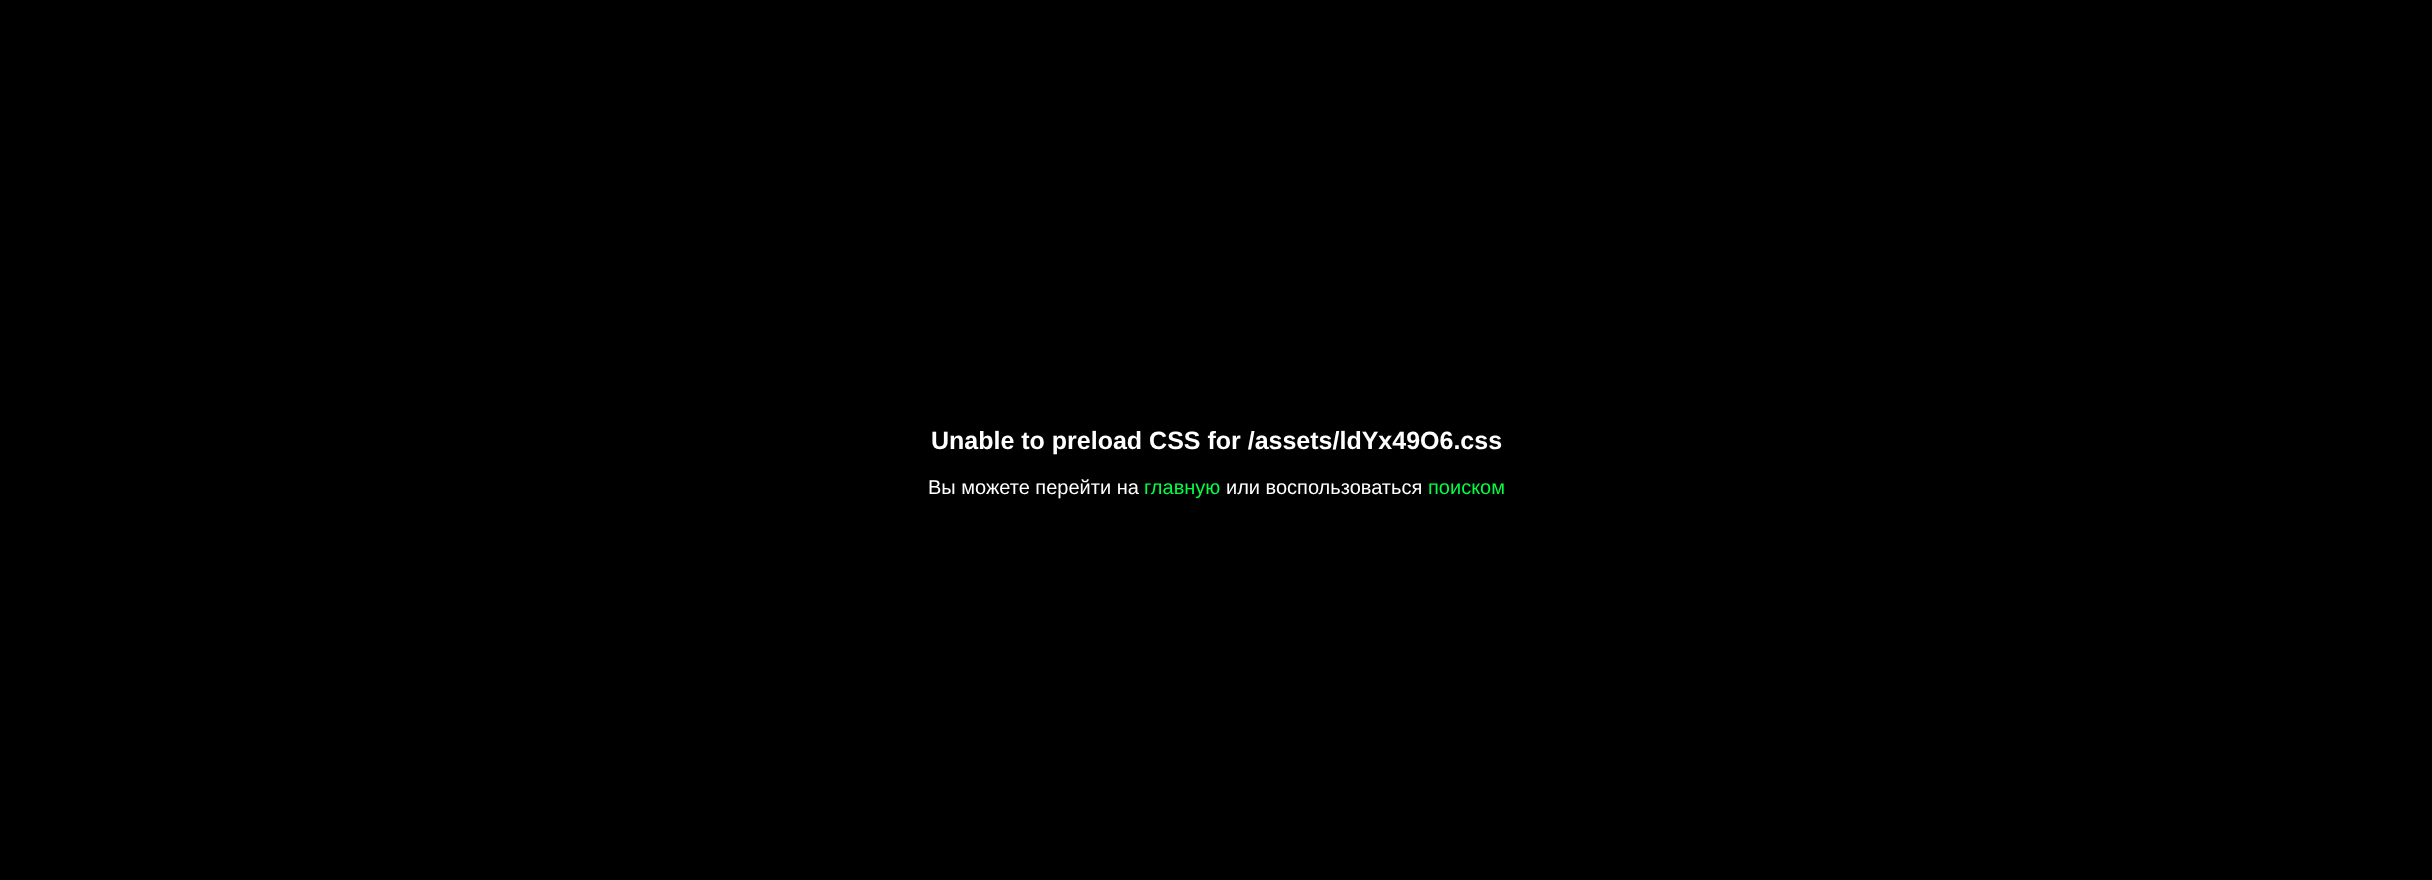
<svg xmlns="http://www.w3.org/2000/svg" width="2432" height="880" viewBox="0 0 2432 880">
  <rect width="100%" height="100%" fill="#000000"/>
  <text x="931" y="449" font-family="Liberation Sans" font-size="25" font-weight="bold" fill="#ffffff">Unable to preload CSS for /assets/ldYx49O6.css</text>
  <text x="928" y="494" font-family="Liberation Sans" font-size="20" fill="#ffffff">Вы можете перейти на</text>
  <text x="1144" y="494" font-family="Liberation Sans" font-size="20" fill="#00ff44">главную</text>
  <text x="1226" y="494" font-family="Liberation Sans" font-size="20" fill="#ffffff">или воспользоваться</text>
  <text x="1428" y="494" font-family="Liberation Sans" font-size="20" fill="#00ff44">поиском</text>
</svg>
